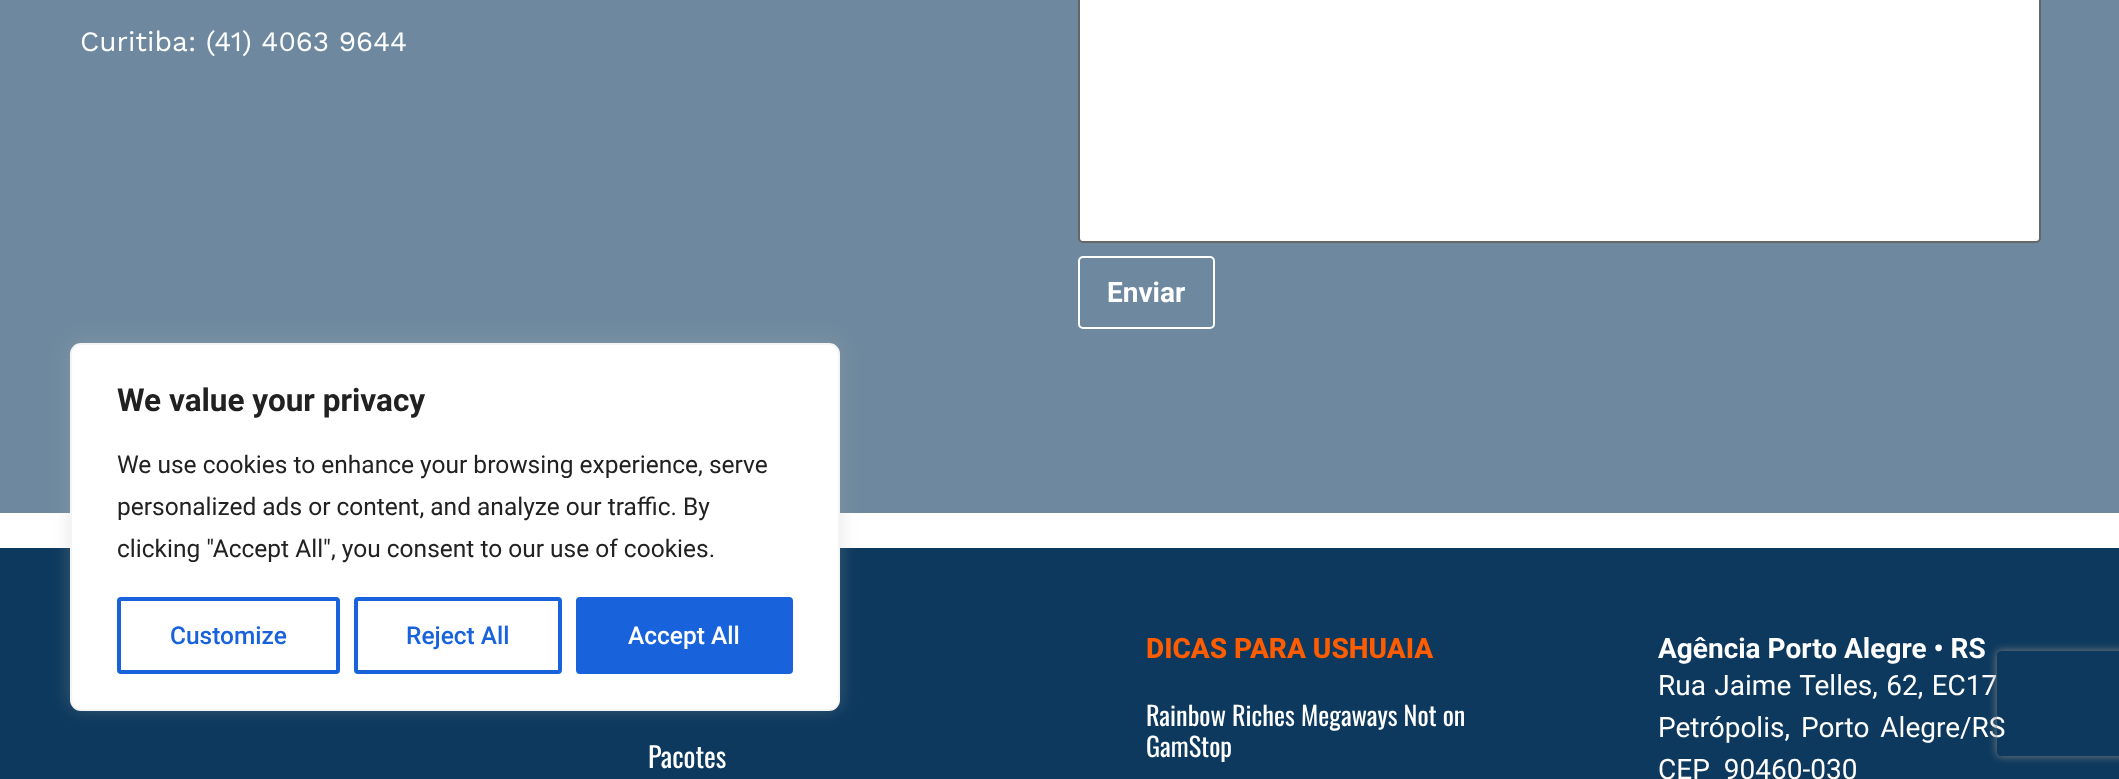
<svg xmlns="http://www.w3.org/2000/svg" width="2119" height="779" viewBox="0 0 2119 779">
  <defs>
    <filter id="blur1" x="-50%" y="-200%" width="200%" height="500%"><feGaussianBlur stdDeviation="9"/></filter>
    <clipPath id="clip1"><path d="M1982 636H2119V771H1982ZM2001 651H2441C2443 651 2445 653 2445 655V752C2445 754 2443 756 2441 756H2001C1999 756 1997 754 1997 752V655C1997 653 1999 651 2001 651Z" clip-rule="evenodd"/></clipPath>
    <filter id="blur2" x="-50%" y="-200%" width="200%" height="500%"><feGaussianBlur stdDeviation="4.5"/></filter>
  </defs>
  <rect width="100%" height="100%" fill="#ffffff"/>
  <rect x="0" y="0" width="2119" height="513" fill="#6e899f"/>
  <text x="80" y="51" font-family="Work Sans" font-size="28" fill="#ffffff">Curitiba: (41) 4063 9644</text>
  <rect x="1079" y="-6" width="961" height="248" rx="4" fill="#ffffff" stroke="#666666" stroke-width="2"/>
  <rect x="1079" y="257" width="135" height="71" rx="4" fill="none" stroke="#ffffff" stroke-width="2"/>
  <text x="1107" y="302" font-family="Roboto" font-size="28" font-weight="bold" fill="#ffffff">Enviar</text>
  <rect x="0" y="548" width="2119" height="231" fill="#0d395e"/>
  <rect x="70" y="341" width="770" height="368" rx="11" fill="#acabab" fill-opacity="0.3" filter="url(#blur1)"/>
  <rect x="71" y="344" width="768" height="366" rx="10" fill="#ffffff" stroke="#f4f4f4" stroke-width="2"/>
  <text x="117" y="411" font-family="Roboto" font-size="31.5" font-weight="bold" fill="#212121">We value your privacy</text>
  <text x="117" y="473" font-family="Roboto" font-size="24.5" fill="#212121">We use cookies to enhance your browsing experience, serve</text>
  <text x="117" y="515" font-family="Roboto" font-size="24.5" fill="#212121">personalized ads or content, and analyze our traffic. By</text>
  <text x="117" y="557" font-family="Roboto" font-size="24.5" fill="#212121">clicking "Accept All", you consent to our use of cookies.</text>
  <rect x="119" y="599" width="219" height="73" rx="2" fill="none" stroke="#1863dc" stroke-width="4"/>
  <text x="170" y="644" font-family="Roboto" font-size="24.5" font-weight="500" fill="#1863dc">Customize</text>
  <rect x="356" y="599" width="204" height="73" rx="2" fill="none" stroke="#1863dc" stroke-width="4"/>
  <text x="406" y="644" font-family="Roboto" font-size="24.5" font-weight="500" fill="#1863dc">Reject All</text>
  <rect x="578" y="599" width="213" height="73" rx="2" fill="#1863dc" stroke="#1863dc" stroke-width="4"/>
  <text x="628" y="644" font-family="Roboto" font-size="24.5" font-weight="500" fill="#ffffff">Accept All</text>
  <text x="648" y="768" font-family="Oswald" font-size="28" fill="#ffffff">Pacotes</text>
  <text x="1146" y="658" font-family="Roboto" font-size="28" font-weight="800" fill="#ff5c00">DICAS PARA USHUAIA</text>
  <text x="1146" y="726" font-family="Oswald" font-size="26.25" fill="#ffffff">Rainbow Riches Megaways Not on</text>
  <text x="1146" y="757" font-family="Oswald" font-size="26.25" fill="#ffffff">GamStop</text>
  <text x="1658" y="658" font-family="Roboto" font-size="28" font-weight="bold" fill="#ffffff">Agência Porto Alegre • RS</text>
  <text x="1658" y="695" word-spacing="1.5" font-family="Roboto" font-size="28" fill="#ffffff">Rua Jaime Telles, 62, EC17</text>
  <text x="1658" y="737" word-spacing="4" font-family="Roboto" font-size="28" fill="#ffffff">Petrópolis, Porto Alegre/RS</text>
  <text x="1658" y="779" word-spacing="7" font-family="Roboto" font-size="28" fill="#ffffff">CEP 90460-030</text>
  <g clip-path="url(#clip1)">
    <rect x="1997" y="651" width="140" height="105" rx="4" fill="#808080" filter="url(#blur2)"/>
  </g>
</svg>
